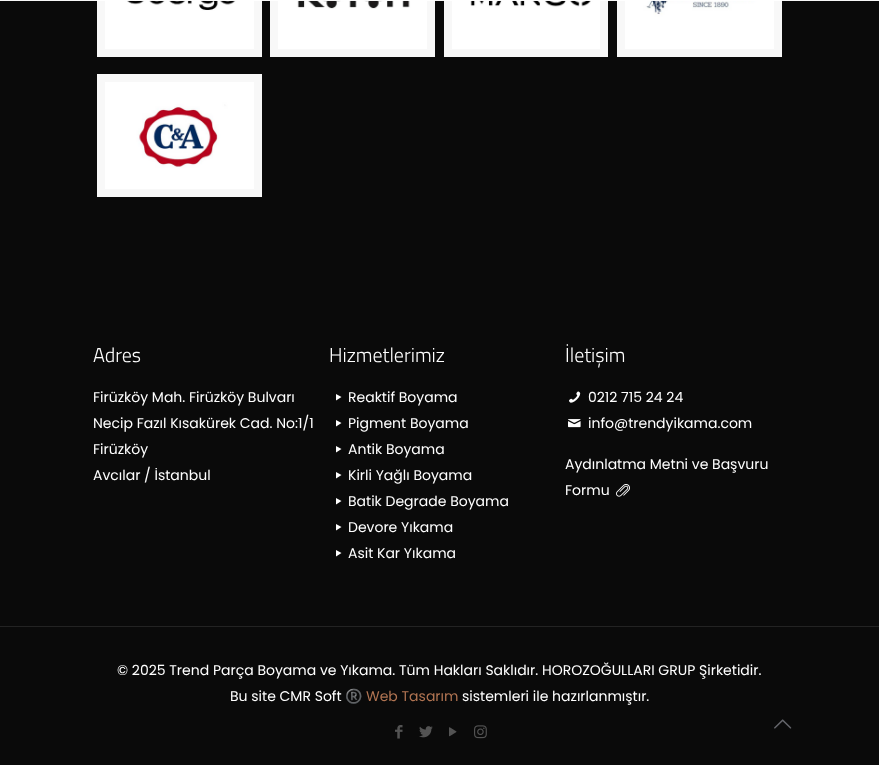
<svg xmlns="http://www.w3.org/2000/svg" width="879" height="765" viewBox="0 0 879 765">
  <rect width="100%" height="100%" fill="#0a0a0a"/>
  <rect x="101" y="-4" width="157" height="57" fill="none" stroke="#f8f8f8" stroke-width="8"/>
  <image x="105" y="0" width="149" height="49" href="img1.png"/>
  <rect x="274" y="-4" width="157" height="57" fill="none" stroke="#f8f8f8" stroke-width="8"/>
  <image x="278" y="0" width="149" height="49" href="img2.png"/>
  <rect x="448" y="-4" width="156" height="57" fill="none" stroke="#f8f8f8" stroke-width="8"/>
  <image x="452" y="0" width="148" height="49" href="img3.png"/>
  <rect x="621" y="-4" width="157" height="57" fill="none" stroke="#f8f8f8" stroke-width="8"/>
  <image x="625" y="0" width="149" height="49" href="img4.png"/>
  <rect x="101" y="78" width="157" height="115" fill="none" stroke="#f8f8f8" stroke-width="8"/>
  <image x="105" y="82" width="149" height="107" href="img5.png"/>
  <rect x="0" y="0" width="879" height="1" fill="#ffffff" fill-opacity="0.97"/>
  <text x="93" y="362" font-family="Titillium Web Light" font-size="20" font-weight="300" fill="#ffffff">Adres</text>
  <text x="93" y="402" font-family="Poppins" font-size="14" fill="#ffffff">Firüzköy Mah. Firüzköy Bulvarı</text>
  <text x="93" y="428" font-family="Poppins" font-size="14" fill="#ffffff">Necip Fazıl Kısakürek Cad. No:1/1</text>
  <text x="93" y="454" font-family="Poppins" font-size="14" fill="#ffffff">Firüzköy</text>
  <text x="93" y="480" font-family="Poppins" font-size="14" fill="#ffffff">Avcılar / İstanbul</text>
  <text x="329" y="362" font-family="Titillium Web Light" font-size="20" font-weight="300" fill="#ffffff">Hizmetlerimiz</text>
  <path d="M336 394L341.5 397L336 400.5Z" fill="#ffffff"/>
  <text x="348" y="402" font-family="Poppins" font-size="14" fill="#ffffff">Reaktif Boyama</text>
  <path d="M336 420L341.5 423L336 426.5Z" fill="#ffffff"/>
  <text x="348" y="428" font-family="Poppins" font-size="14" fill="#ffffff">Pigment Boyama</text>
  <path d="M336 446L341.5 449L336 452.5Z" fill="#ffffff"/>
  <text x="348" y="454" font-family="Poppins" font-size="14" fill="#ffffff">Antik Boyama</text>
  <path d="M336 472L341.5 475L336 478.5Z" fill="#ffffff"/>
  <text x="348" y="480" font-family="Poppins" font-size="14" fill="#ffffff">Kirli Yağlı Boyama</text>
  <path d="M336 498L341.5 501L336 504.5Z" fill="#ffffff"/>
  <text x="348" y="506" font-family="Poppins" font-size="14" fill="#ffffff">Batik Degrade Boyama</text>
  <path d="M336 524L341.5 527L336 530.5Z" fill="#ffffff"/>
  <text x="348" y="532" font-family="Poppins" font-size="14" fill="#ffffff">Devore Yıkama</text>
  <path d="M336 550L341.5 553L336 556.5Z" fill="#ffffff"/>
  <text x="348" y="558" font-family="Poppins" font-size="14" fill="#ffffff">Asit Kar Yıkama</text>
  <text x="565" y="362" font-family="Titillium Web Light" font-size="20" font-weight="300" fill="#ffffff">İletişim</text>
  <image x="569" y="391" width="12" height="12" href="img6.png"/>
  <text x="588" y="402" font-family="Poppins" font-size="14" fill="#ffffff">0212 715 24 24</text>
  <image x="568" y="419" width="13" height="9" href="img7.png"/>
  <text x="588" y="428" font-family="Poppins" font-size="14" fill="#ffffff">info@trendyikama.com</text>
  <text x="565" y="469" font-family="Poppins" font-size="14" fill="#ffffff">Aydınlatma Metni ve Başvuru</text>
  <text x="565" y="495" font-family="Poppins" font-size="14" fill="#ffffff">Formu</text>
  <image x="616" y="484" width="14" height="13" href="img8.png"/>
  <rect x="0" y="626" width="879" height="1" fill="#232323"/>
  <text x="117" y="675" font-family="Poppins" font-size="14" fill="#ffffff">© 2025 Trend Parça Boyama ve Yıkama. Tüm Hakları Saklıdır. HOROZOĞULLARI GRUP Şirketidir.</text>
  <text x="230" y="701" font-family="Poppins" font-size="14" fill="#ffffff">Bu site CMR Soft</text>
  <text x="345" y="701" font-family="Noto Color Emoji" font-size="14" fill="#ffffff">®️</text>
  <text x="366" y="701" font-family="Poppins" font-size="14" fill="#b17452">Web Tasarım</text>
  <text x="462" y="701" font-family="Poppins" font-size="14" fill="#ffffff">sistemleri ile hazırlanmıştır.</text>
  <image x="395" y="725" width="8" height="14" href="img9.png"/>
  <image x="419" y="726" width="14" height="12" href="img10.png"/>
  <image x="449" y="727" width="8" height="10" href="img11.png"/>
  <image x="474" y="725" width="13" height="14" href="img12.png"/>
  <image x="774" y="719" width="18" height="10" href="img13.png"/>
</svg>
